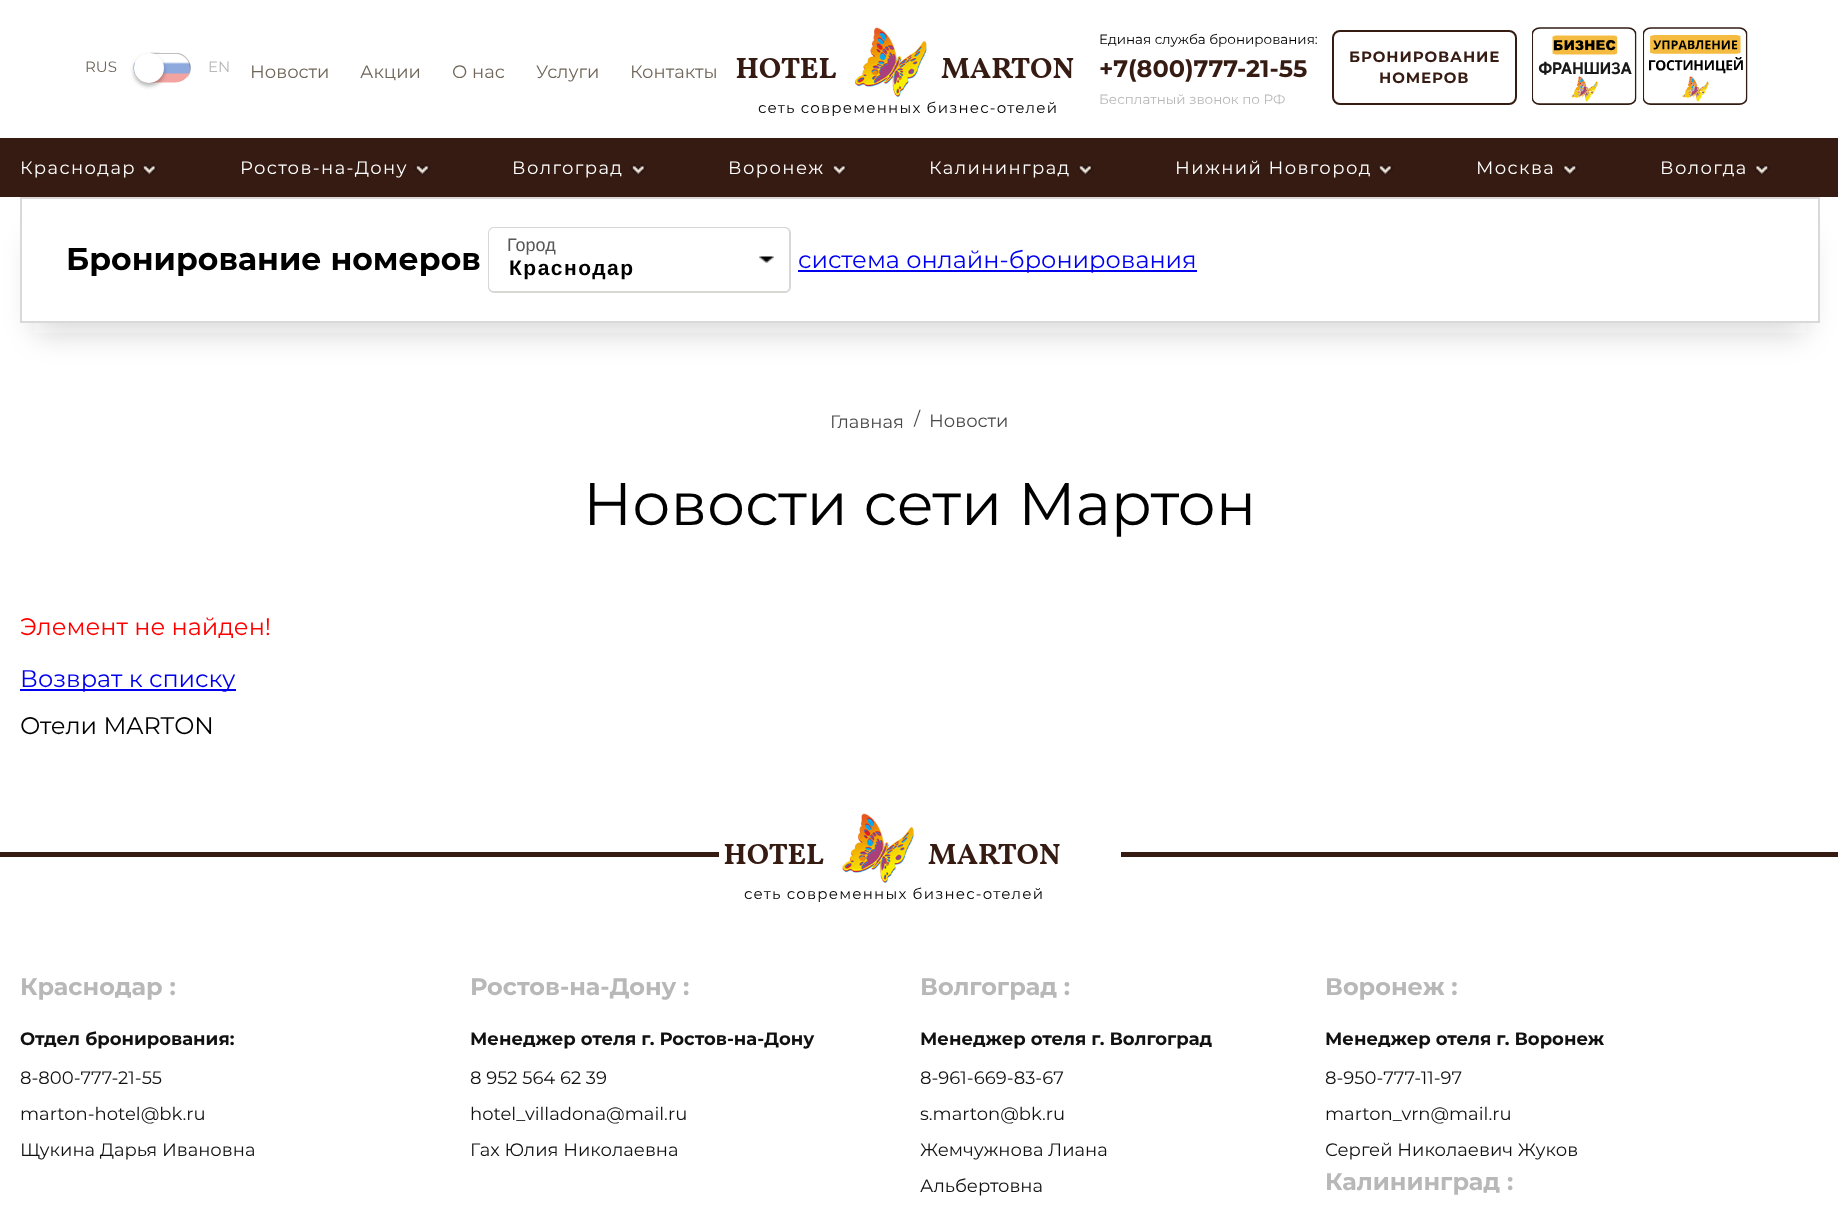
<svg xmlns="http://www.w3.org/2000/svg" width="1838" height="1216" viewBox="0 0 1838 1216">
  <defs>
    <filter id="blur1" x="-50%" y="-200%" width="200%" height="500%"><feGaussianBlur stdDeviation="2"/></filter>
    <clipPath id="clip1"><path d="M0 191H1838V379H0ZM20 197H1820V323H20Z" clip-rule="evenodd"/></clipPath>
    <filter id="blur2" x="-50%" y="-200%" width="200%" height="500%"><feGaussianBlur stdDeviation="15"/></filter>
  </defs>
  <rect width="100%" height="100%" fill="#ffffff"/>
  <text x="85" y="72" font-family="Montserrat" font-size="15" fill="#70665a">RUS</text>
  <image x="133" y="62" width="58" height="21" href="img1.png"/>
  <path d="M148 54H176C184 54 190 61 190 69C190 72 189 75 187 78C195 70 190 56 179 53H162C154 53 142 51 137 60C135 62 134 65 134 68C134 61 140 54 148 54Z" fill="#000000" fill-opacity="0.25"/>
  <rect x="134" y="56" width="30" height="30" rx="15" fill="#000000" fill-opacity="0.3" filter="url(#blur1)"/>
  <circle cx="149" cy="68" r="15" fill="#ffffff"/>
  <text x="208" y="72" font-family="Montserrat" font-size="15" fill="#b8b8b8">EN</text>
  <text x="250" y="78" font-family="Montserrat" font-size="18" fill="#70665a">Новости</text>
  <text x="360" y="78" font-family="Montserrat" font-size="18" fill="#70665a">Акции</text>
  <text x="452" y="78" font-family="Montserrat" font-size="18" fill="#70665a">О нас</text>
  <text x="536" y="78" font-family="Montserrat" font-size="18" fill="#70665a">Услуги</text>
  <text x="630" y="78" font-family="Montserrat" font-size="18" fill="#70665a">Контакты</text>
  <text x="1099" y="44" font-family="Montserrat" font-size="13.5" fill="#000000">Единая служба бронирования:</text>
  <text x="1099" y="77" font-family="Montserrat" font-size="24" font-weight="bold" fill="#351b12">+7(800)777-21-55</text>
  <text x="1099" y="104" font-family="Montserrat" font-size="13.5" fill="#b8b8b8">Бесплатный звонок по РФ</text>
  <rect x="1333" y="31" width="183" height="73" rx="7" fill="none" stroke="#351b12" stroke-width="2"/>
  <text x="1349" y="62" font-family="Montserrat" font-size="15" font-weight="bold" letter-spacing="0.9" fill="#351b12">БРОНИРОВАНИЕ</text>
  <text x="1379" y="83" font-family="Montserrat" font-size="15" font-weight="bold" letter-spacing="0.9" fill="#351b12">НОМЕРОВ</text>
  <image x="1532" y="27" width="105" height="78" href="img2.png"/>
  <image x="1643" y="27" width="105" height="78" href="img3.png"/>
  <image x="736" y="27" width="338" height="70" href="img4.png"/>
  <text x="758" y="113" font-family="Montserrat" font-size="15" letter-spacing="1.2" fill="#000000">сеть современных бизнес-отелей</text>
  <rect x="0" y="138" width="1838" height="59" fill="#351b12"/>
  <image x="141" y="164" width="17" height="12" href="img5.png"/>
  <text x="20" y="174" font-family="Montserrat" font-size="18" letter-spacing="1.4" fill="#ffffff">Краснодар</text>
  <image x="414" y="164" width="17" height="12" href="img6.png"/>
  <text x="240" y="174" font-family="Montserrat" font-size="18" letter-spacing="1.4" fill="#ffffff">Ростов-на-Дону</text>
  <image x="630" y="164" width="17" height="12" href="img5.png"/>
  <text x="512" y="174" font-family="Montserrat" font-size="18" letter-spacing="1.4" fill="#ffffff">Волгоград</text>
  <image x="831" y="164" width="17" height="12" href="img5.png"/>
  <text x="728" y="174" font-family="Montserrat" font-size="18" letter-spacing="1.4" fill="#ffffff">Воронеж</text>
  <image x="1077" y="164" width="17" height="12" href="img6.png"/>
  <text x="929" y="174" font-family="Montserrat" font-size="18" letter-spacing="1.4" fill="#ffffff">Калининград</text>
  <image x="1377" y="164" width="17" height="12" href="img5.png"/>
  <text x="1175" y="174" font-family="Montserrat" font-size="18" letter-spacing="1.4" fill="#ffffff">Нижний Новгород</text>
  <image x="1562" y="164" width="16" height="12" href="img7.png"/>
  <text x="1476" y="174" font-family="Montserrat" font-size="18" letter-spacing="1.4" fill="#ffffff">Москва</text>
  <image x="1754" y="164" width="16" height="12" href="img7.png"/>
  <text x="1660" y="174" font-family="Montserrat" font-size="18" letter-spacing="1.4" fill="#ffffff">Вологда</text>
  <g clip-path="url(#clip1)">
    <rect x="35" y="237" width="1770" height="96" fill="#2f2a24" fill-opacity="0.18" filter="url(#blur2)"/>
  </g>
  <rect x="21" y="198" width="1798" height="124" fill="none" stroke="#2f2a24" stroke-opacity="0.18" stroke-width="2"/>
  <text x="66" y="270" font-family="Montserrat" font-size="31.5" font-weight="bold" fill="#000000">Бронирование номеров</text>
  <rect x="489" y="228" width="301" height="64" rx="5" fill="none" stroke="#d9d7d3" stroke-width="2"/>
  <path d="M494 227C491 227 489 230 489 232C489 230 491 228 494 228H784C787 228 789 230 789 232C789 230 787 227 784 227Z" fill="#d9d7d3"/>
  <rect x="489" y="228" width="300" height="63" rx="5" fill="#ffffff"/>
  <text x="507" y="251" font-family="Liberation Sans" font-size="18" fill="#575757">Город</text>
  <image x="759" y="256" width="15" height="7" href="img8.png"/>
  <text x="509" y="275" font-family="Liberation Sans" font-size="21" font-weight="bold" letter-spacing="1.5" fill="#000000">Краснодар</text>
  <rect x="798" y="270" width="399" height="2" fill="#0000ee"/>
  <text x="798" y="268" font-family="Montserrat" font-size="24" fill="#0000ee">система онлайн-бронирования</text>
  <text x="830" y="428" font-family="Montserrat" font-size="18" fill="#4a4a4a">Главная</text>
  <text x="914" y="425" font-family="Montserrat" font-size="18" fill="#4a4a4a">/</text>
  <text x="929" y="427" font-family="Montserrat" font-size="18" fill="#4a4a4a">Новости</text>
  <text x="583" y="525" font-family="Montserrat" font-size="60" fill="#000000">Новости сети Мартон</text>
  <text x="20" y="635" font-family="Montserrat" font-size="24" fill="#ff0000">Элемент не найден!</text>
  <rect x="20" y="689" width="216" height="2" fill="#0000ee"/>
  <text x="20" y="687" font-family="Montserrat" font-size="24" fill="#0000ee">Возврат к списку</text>
  <text x="20" y="734" font-family="Montserrat" font-size="24" fill="#000000">Отели MARTON</text>
  <rect x="0" y="852" width="1838" height="5" fill="#351b12"/>
  <rect x="719" y="852" width="402" height="5" fill="#ffffff"/>
  <image x="724" y="813" width="336" height="70" href="img9.png"/>
  <text x="744" y="899" font-family="Montserrat" font-size="15" letter-spacing="1.2" fill="#000000">сеть современных бизнес-отелей</text>
  <text x="20" y="995" font-family="Montserrat" font-size="24" font-weight="bold" fill="#b8b8b8">Краснодар :</text>
  <text x="20" y="1045" font-family="Montserrat" font-size="18" font-weight="bold" fill="#111111">Отдел бронирования:</text>
  <text x="20" y="1084" font-family="Montserrat" font-size="18" fill="#111111">8-800-777-21-55</text>
  <text x="20" y="1120" font-family="Montserrat" font-size="18" fill="#111111">marton-hotel@bk.ru</text>
  <text x="20" y="1156" font-family="Montserrat" font-size="18" fill="#111111">Щукина Дарья Ивановна</text>
  <text x="470" y="995" font-family="Montserrat" font-size="24" font-weight="bold" fill="#b8b8b8">Ростов-на-Дону :</text>
  <text x="470" y="1045" font-family="Montserrat" font-size="18" font-weight="bold" fill="#111111">Менеджер отеля г. Ростов-на-Дону</text>
  <text x="470" y="1084" font-family="Montserrat" font-size="18" fill="#111111">8 952 564 62 39</text>
  <text x="470" y="1120" font-family="Montserrat" font-size="18" fill="#111111">hotel_villadona@mail.ru</text>
  <text x="470" y="1156" font-family="Montserrat" font-size="18" fill="#111111">Гах Юлия Николаевна</text>
  <text x="920" y="995" font-family="Montserrat" font-size="24" font-weight="bold" fill="#b8b8b8">Волгоград :</text>
  <text x="920" y="1045" font-family="Montserrat" font-size="18" font-weight="bold" fill="#111111">Менеджер отеля г. Волгоград</text>
  <text x="920" y="1084" font-family="Montserrat" font-size="18" fill="#111111">8-961-669-83-67</text>
  <text x="920" y="1120" font-family="Montserrat" font-size="18" fill="#111111">s.marton@bk.ru</text>
  <text x="920" y="1156" font-family="Montserrat" font-size="18" fill="#111111">Жемчужнова Лиана</text>
  <text x="920" y="1192" font-family="Montserrat" font-size="18" fill="#111111">Альбертовна</text>
  <text x="1325" y="995" font-family="Montserrat" font-size="24" font-weight="bold" fill="#b8b8b8">Воронеж :</text>
  <text x="1325" y="1045" font-family="Montserrat" font-size="18" font-weight="bold" fill="#111111">Менеджер отеля г. Воронеж</text>
  <text x="1325" y="1084" font-family="Montserrat" font-size="18" fill="#111111">8-950-777-11-97</text>
  <text x="1325" y="1120" font-family="Montserrat" font-size="18" fill="#111111">marton_vrn@mail.ru</text>
  <text x="1325" y="1156" font-family="Montserrat" font-size="18" fill="#111111">Сергей Николаевич Жуков</text>
  <text x="1325" y="1190" font-family="Montserrat" font-size="24" font-weight="bold" fill="#b8b8b8">Калининград :</text>
</svg>
